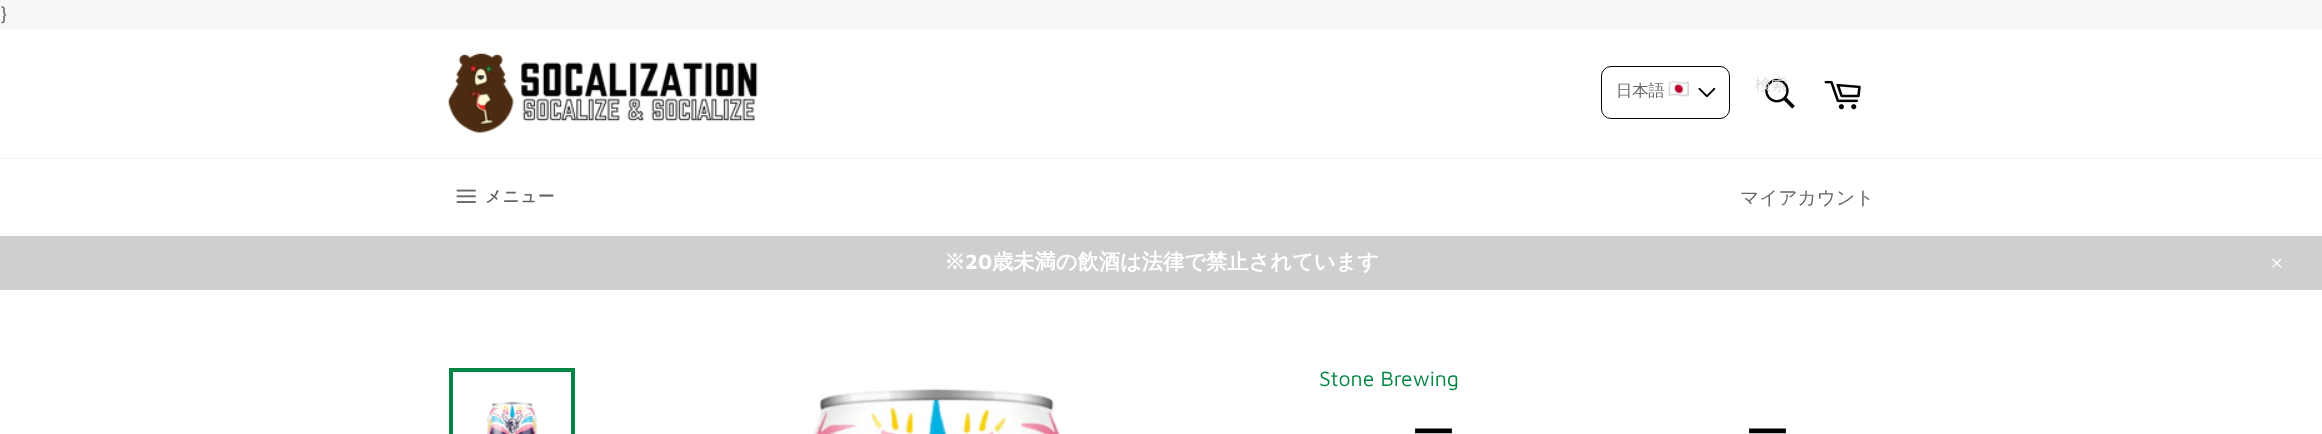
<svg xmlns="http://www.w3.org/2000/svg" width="2322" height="434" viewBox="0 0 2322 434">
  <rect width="100%" height="100%" fill="#f7f7f7"/>
  <text x="0" y="21" font-family="Maven Pro" font-size="21.25" fill="#666666">}</text>
  <rect x="0" y="29" width="2322" height="129" fill="#ffffff"/>
  <image x="448" y="53" width="310" height="80" href="img1.png"/>
  <rect x="1601.5" y="66.5" width="128" height="52" rx="9.5" fill="none" stroke="#000000"/>
  <text x="1616" y="96" font-family="WenQuanYi Zen Hei" font-size="16.25" font-weight="500" fill="#666666">日本語</text>
  <image x="1668" y="81" width="21" height="16" href="img2.png"/>
  <image x="1698" y="87" width="18" height="11" href="img3.png"/>
  <image x="1765" y="78" width="30" height="31" href="img4.png"/>
  <text x="1755" y="90" font-family="WenQuanYi Zen Hei" font-size="16.25" font-weight="500" fill="#dddddd">検索</text>
  <image x="1824" y="80" width="37" height="30" href="img5.png"/>
  <rect x="0" y="159" width="2322" height="77" fill="#ffffff"/>
  <rect x="0" y="158" width="2322" height="1" fill="#f2f2f2"/>
  <image x="456" y="189" width="20" height="14" href="img6.png"/>
  <text x="485" y="202" font-family="WenQuanYi Zen Hei" font-size="16.25" font-weight="bold" letter-spacing="1" fill="#666666">メニュー</text>
  <text x="1740" y="204" font-family="WenQuanYi Zen Hei" font-size="18.75" font-weight="500" fill="#666666">マイアカウント</text>
  <rect x="0" y="236" width="2322" height="54" fill="#cfcfcf"/>
  <text x="944" y="269" font-family="WenQuanYi Zen Hei" font-size="21.25" font-weight="bold" fill="#ffffff">※</text>
  <text x="965" y="269" font-family="Maven Pro" font-size="21.25" font-weight="bold" fill="#ffffff">20</text>
  <text x="992" y="269" font-family="WenQuanYi Zen Hei" font-size="21.25" font-weight="bold" fill="#ffffff">歳未満の飲酒は法律で禁止されています</text>
  <image x="2272" y="258" width="10" height="10" href="img7.png"/>
  <rect x="0" y="290" width="2322" height="144" fill="#ffffff"/>
  <image x="487" y="401" width="51" height="33" href="img8.png"/>
  <rect x="451" y="370" width="122" height="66" fill="none" stroke="#008542" stroke-width="4"/>
  <image x="813" y="388" width="248" height="46" href="img9.png"/>
  <text x="1319" y="386" font-family="Maven Pro" font-size="21.25" fill="#008542">Stone Brewing</text>
  <text x="1411" y="448" font-family="WenQuanYi Zen Hei" font-size="45" font-weight="500" fill="#030303">ー</text>
  <text x="1745" y="448" font-family="WenQuanYi Zen Hei" font-size="45" font-weight="500" fill="#030303">ー</text>
</svg>
